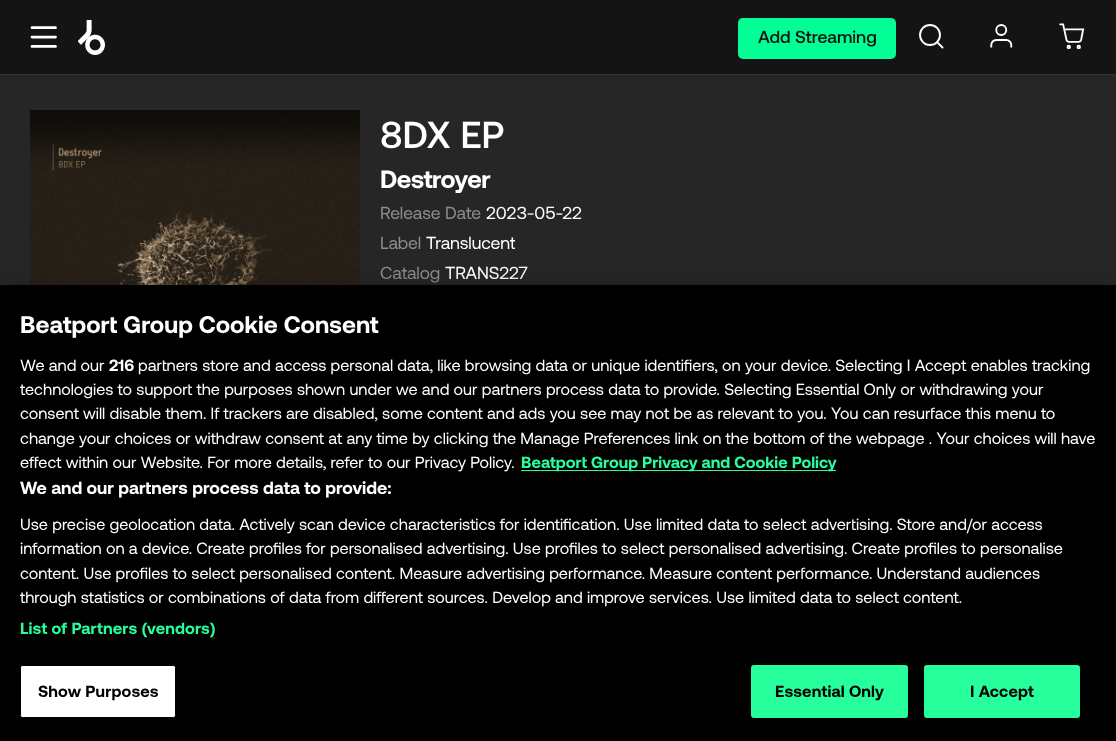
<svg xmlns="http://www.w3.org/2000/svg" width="1116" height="741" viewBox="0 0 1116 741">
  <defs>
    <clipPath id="clip1"><rect x="426" y="230" width="89" height="25"/></clipPath>
    <filter id="blur1" x="-50%" y="-200%" width="200%" height="500%"><feGaussianBlur stdDeviation="11"/></filter>
  </defs>
  <rect width="100%" height="100%" fill="#262626"/>
  <rect x="0" y="0" width="1116" height="74" fill="#141414"/>
  <rect x="0" y="74" width="1116" height="1" fill="#333333"/>
  <image x="30" y="26" width="27" height="22" href="img1.png"/>
  <image x="78" y="20" width="27" height="35" href="img2.png"/>
  <rect x="738" y="18" width="158" height="41" rx="5" fill="#01ff95"/>
  <text x="758" y="43" font-family="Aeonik" font-size="17.5" font-weight="500" fill="#141414">Add Streaming</text>
  <image x="919" y="24" width="25" height="25" href="img3.png"/>
  <image x="990" y="24" width="23" height="24" href="img4.png"/>
  <image x="1059" y="23" width="26" height="26" href="img5.png"/>
  <image x="30" y="110" width="330" height="175" href="img6.png"/>
  <text x="380" y="148" font-family="Aeonik" font-size="37.5" font-weight="500" fill="#ffffff">8DX EP</text>
  <text x="380" y="188" font-family="Aeonik" font-size="25" font-weight="bold" letter-spacing="-0.5" fill="#ffffff">Destroyer</text>
  <text x="380" y="219" font-family="Aeonik" font-size="17.5" letter-spacing="-0.1" fill="#8c8c8c">Release Date</text>
  <text x="486" y="219" font-family="Aeonik" font-size="17.5" letter-spacing="-0.1" fill="#ffffff">2023-05-22</text>
  <text x="380" y="249" font-family="Aeonik" font-size="17.5" letter-spacing="-0.1" fill="#8c8c8c">Label</text>
  <g clip-path="url(#clip1)">
    <text x="426" y="249" font-family="Aeonik" font-size="17.5" letter-spacing="-0.1" fill="#ffffff">Translucent</text>
  </g>
  <text x="380" y="279" font-family="Aeonik" font-size="17.5" letter-spacing="-0.1" fill="#8c8c8c">Catalog</text>
  <text x="445" y="279" font-family="Aeonik" font-size="17.5" letter-spacing="-0.1" fill="#ffffff">TRANS227</text>
  <rect x="0" y="285" width="1116" height="456" fill="#000000" fill-opacity="0.2" filter="url(#blur1)"/>
  <rect x="0" y="285" width="1116" height="456" fill="#000000"/>
  <text x="20" y="333" font-family="Aeonik" font-size="24" font-weight="bold" fill="#ffffff">Beatport Group Cookie Consent</text>
  <text x="20" y="371" font-family="Aeonik" font-size="16.25" fill="#ffffff">We and our</text>
  <text x="109" y="371" font-family="Aeonik" font-size="16.25" font-weight="bold" fill="#ffffff">216</text>
  <text x="138" y="371" font-family="Aeonik" font-size="16.25" fill="#ffffff">partners store and access personal data, like browsing data or unique identifiers, on your device. Selecting I Accept enables tracking</text>
  <text x="20" y="395" font-family="Aeonik" font-size="16.25" fill="#ffffff">technologies to support the purposes shown under we and our partners process data to provide. Selecting Essential Only or withdrawing your</text>
  <text x="20" y="419" font-family="Aeonik" font-size="16.25" fill="#ffffff">consent will disable them. If trackers are disabled, some content and ads you see may not be as relevant to you. You can resurface this menu to</text>
  <text x="20" y="444" font-family="Aeonik" font-size="16.25" fill="#ffffff">change your choices or withdraw consent at any time by clicking the Manage Preferences link on the bottom of the webpage . Your choices will have</text>
  <text x="20" y="468" font-family="Aeonik" font-size="16.25" fill="#ffffff">effect within our Website. For more details, refer to our Privacy Policy.</text>
  <rect x="521" y="470" width="315" height="1" fill="#27ff9c"/>
  <text x="521" y="468" font-family="Aeonik" font-size="16.25" font-weight="bold" fill="#27ff9c">Beatport Group Privacy and Cookie Policy</text>
  <text x="20" y="494" font-family="Aeonik" font-size="17.6" font-weight="bold" fill="#ffffff">We and our partners process data to provide:</text>
  <text x="20" y="530" font-family="Aeonik" font-size="16.25" fill="#ffffff">Use precise geolocation data. Actively scan device characteristics for identification. Use limited data to select advertising. Store and/or access</text>
  <text x="20" y="554" font-family="Aeonik" font-size="16.25" fill="#ffffff">information on a device. Create profiles for personalised advertising. Use profiles to select personalised advertising. Create profiles to personalise</text>
  <text x="20" y="579" font-family="Aeonik" font-size="16.25" fill="#ffffff">content. Use profiles to select personalised content. Measure advertising performance. Measure content performance. Understand audiences</text>
  <text x="20" y="603" font-family="Aeonik" font-size="16.25" fill="#ffffff">through statistics or combinations of data from different sources. Develop and improve services. Use limited data to select content.</text>
  <text x="20" y="634" font-family="Aeonik" font-size="16.25" font-weight="bold" letter-spacing="0.15" fill="#27ff9c">List of Partners (vendors)</text>
  <rect x="20.5" y="665.5" width="155" height="52" rx="2" fill="#ffffff" stroke="#000000"/>
  <text x="38" y="697" font-family="Aeonik" font-size="16.25" font-weight="bold" letter-spacing="0.15" fill="#000000">Show Purposes</text>
  <rect x="751.5" y="665.5" width="156" height="52" rx="2" fill="#27ff9c" stroke="#27ff9c"/>
  <text x="775" y="697" font-family="Aeonik" font-size="16.25" font-weight="bold" letter-spacing="0.15" fill="#000000">Essential Only</text>
  <rect x="924.5" y="665.5" width="155" height="52" rx="2" fill="#27ff9c" stroke="#27ff9c"/>
  <text x="970" y="697" font-family="Aeonik" font-size="16.25" font-weight="bold" letter-spacing="0.15" fill="#000000">I Accept</text>
</svg>
